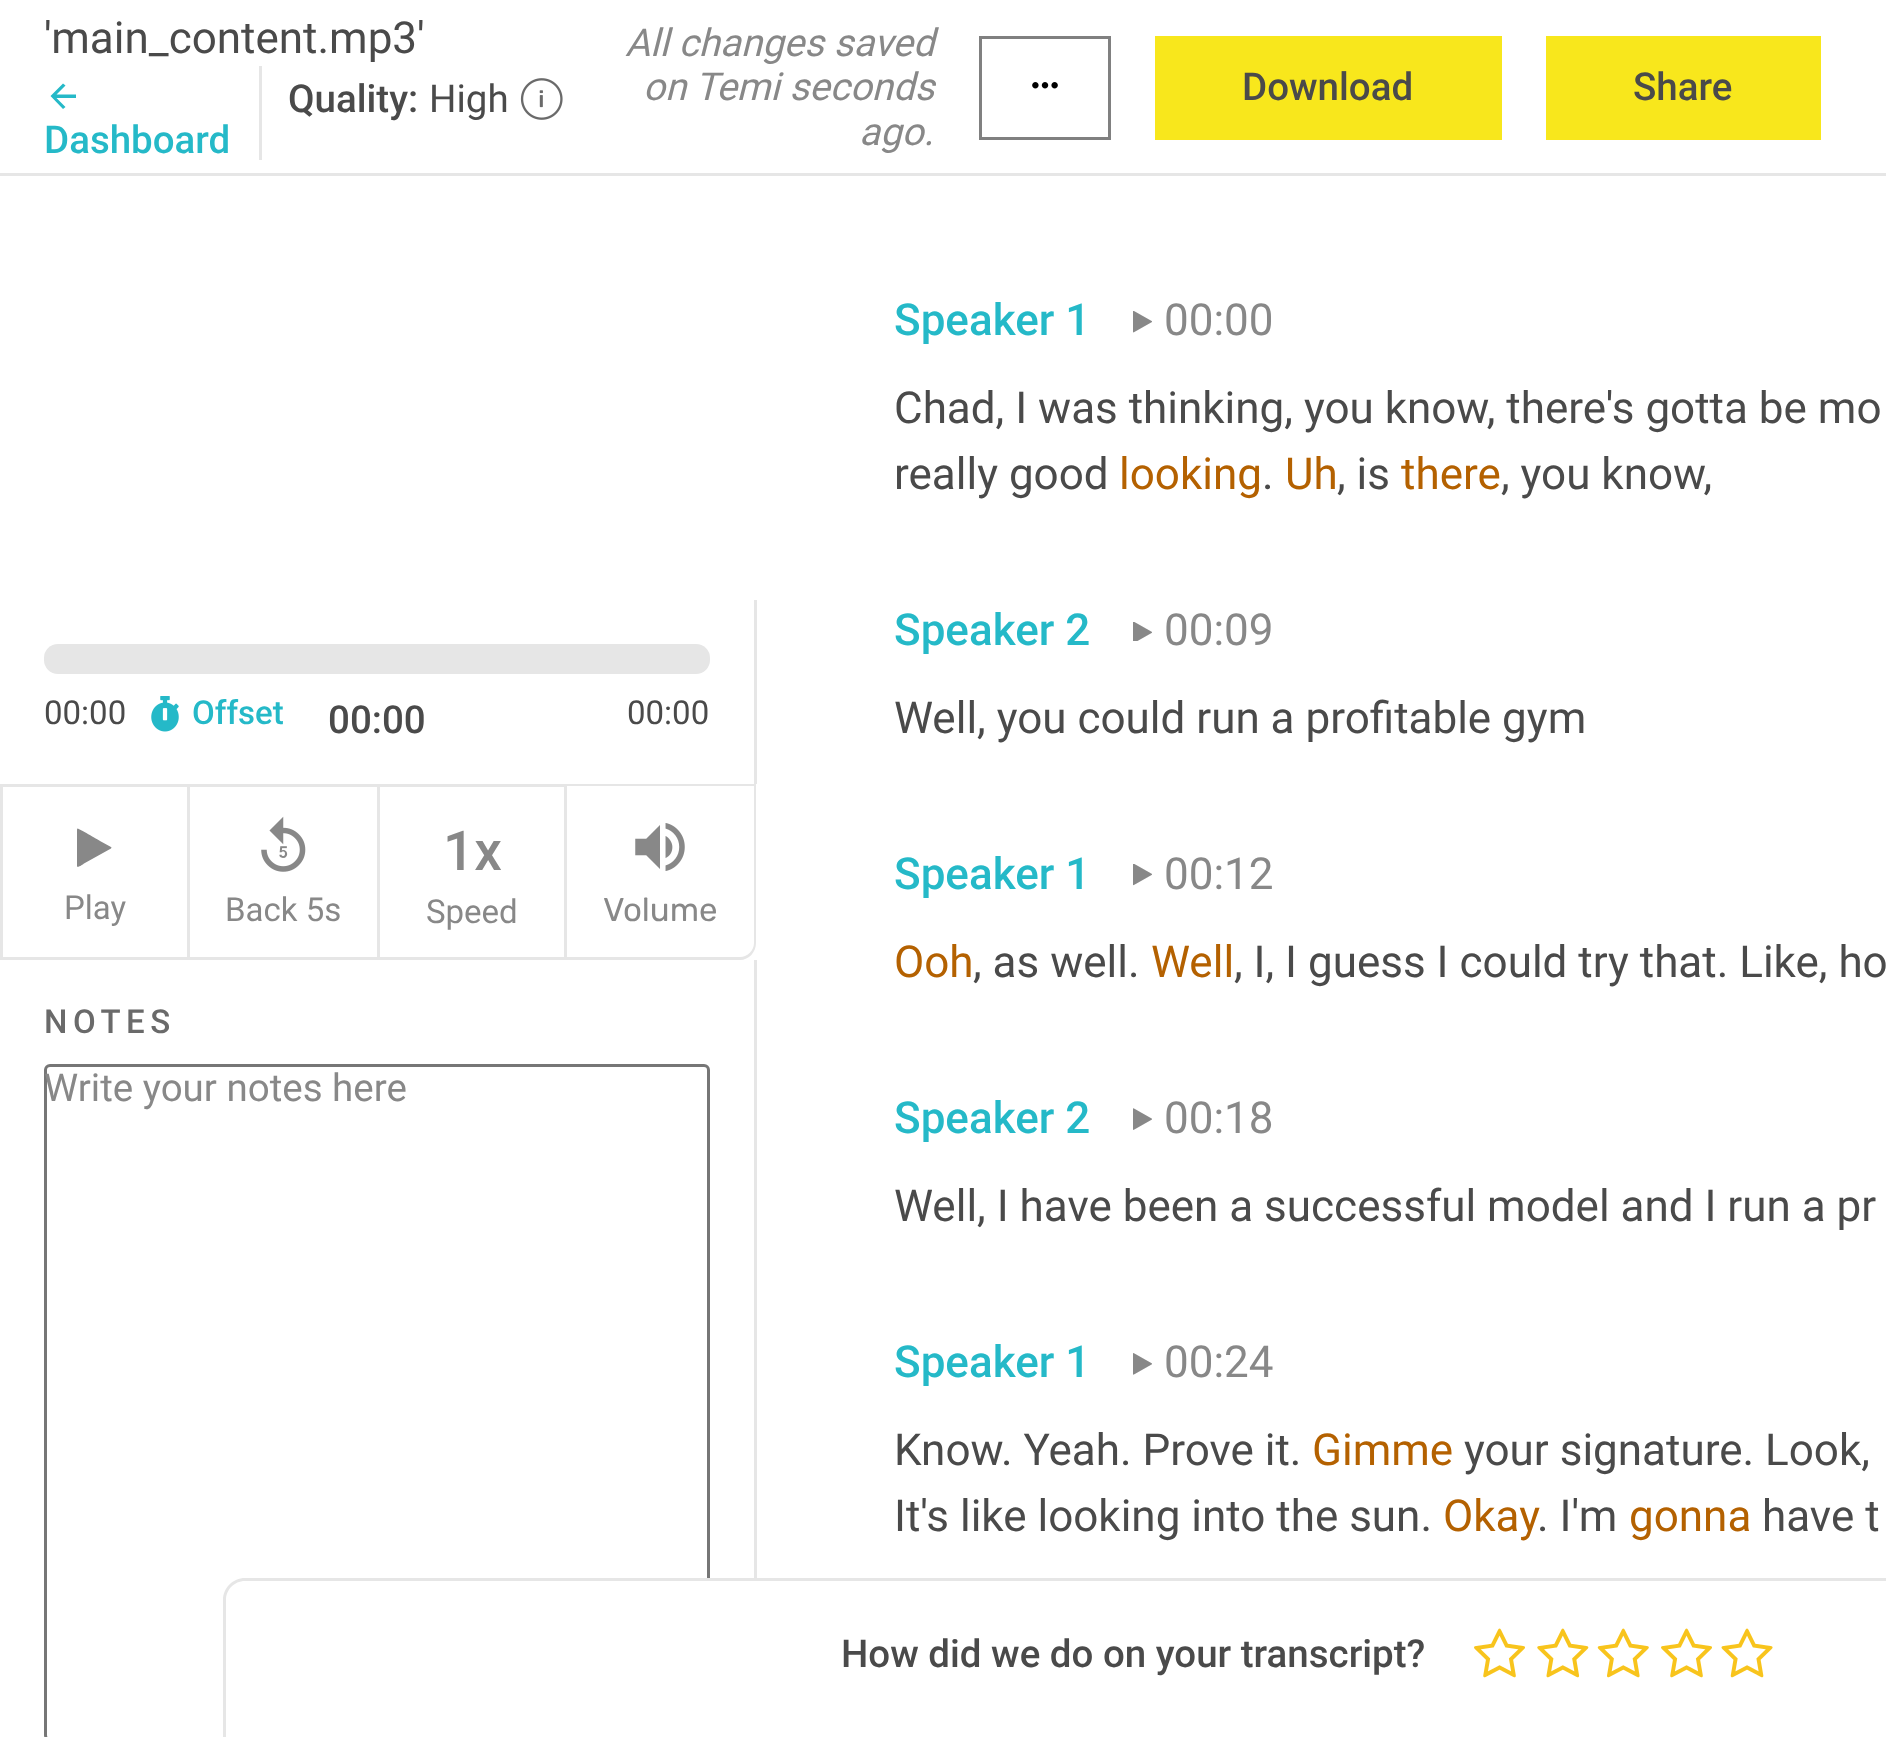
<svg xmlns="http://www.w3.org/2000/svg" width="1886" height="1737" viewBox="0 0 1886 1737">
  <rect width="100%" height="100%" fill="#ffffff"/>
  <rect x="0" y="173" width="1886" height="3" fill="#e6e6e6"/>
  <text x="44" y="53" font-family="Roboto" font-size="44" fill="#4a4a4a">'main_content.mp3'</text>
  <rect x="259" y="66" width="3" height="94" fill="#e6e6e6"/>
  <text x="288" y="112" font-family="Roboto" font-size="38.5" font-weight="500" fill="#4a4a4a">Quality:</text>
  <text x="429" y="112" font-family="Roboto" font-size="38.5" fill="#4a4a4a">High</text>
  <image x="520" y="78" width="43" height="42" href="img1.png"/>
  <path d="M76 94.5V98H56.5L65.5 107L63 109L50.5 96L63 83.5L65.5 85.5L56.5 94.5Z" fill="#25b9c8"/>
  <text x="44" y="153" font-family="Roboto" font-size="38.5" font-weight="500" fill="#25b9c8">Dashboard</text>
  <text x="625" y="56" font-family="Roboto" font-size="38.5" font-style="italic" fill="#888888">All changes saved</text>
  <text x="643" y="100" font-family="Roboto" font-size="38.5" font-style="italic" fill="#888888">on Temi seconds</text>
  <text x="859" y="145" font-family="Roboto" font-size="38.5" font-style="italic" fill="#888888">ago.</text>
  <rect x="980.5" y="37.5" width="129" height="101" fill="none" stroke="#808080" stroke-width="3"/>
  <image x="1032" y="82" width="26" height="7" href="img2.png"/>
  <rect x="1155" y="36" width="347" height="104" fill="#f8e71c"/>
  <text x="1242" y="100" font-family="Roboto" font-size="38.5" font-weight="500" fill="#4a4a4a">Download</text>
  <rect x="1546" y="36" width="275" height="104" fill="#f8e71c"/>
  <text x="1633" y="100" font-family="Roboto" font-size="38.5" font-weight="500" fill="#4a4a4a">Share</text>
  <rect x="754" y="600" width="3" height="184" fill="#e6e6e6"/>
  <rect x="44" y="644" width="666" height="30" rx="14" fill="#e6e6e6"/>
  <text x="44" y="724" font-family="Roboto" font-size="33" fill="#4a4a4a">00:00</text>
  <image x="151" y="696" width="28" height="36" href="img3.png"/>
  <text x="192" y="724" font-family="Roboto" font-size="33" font-weight="500" fill="#25b9c8">Offset</text>
  <text x="328" y="733" font-family="Roboto" font-size="38.5" font-weight="500" fill="#4a4a4a">00:00</text>
  <text x="627" y="724" font-family="Roboto" font-size="33" fill="#4a4a4a">00:00</text>
  <rect x="1.5" y="785.5" width="187" height="173" fill="none" stroke="#e6e6e6" stroke-width="3"/>
  <path d="M111 848.5L84 863.5C83.5 864 78 868 77 866.5V829.5L77.5 828.5C78.5 828.5 98 839.5 100 841L111 847L111.5 847.5Z" fill="#888888"/>
  <text x="64" y="919" font-family="Roboto" font-size="33" fill="#888888">Play</text>
  <rect x="190" y="784" width="377" height="3" fill="#e6e6e6"/>
  <rect x="377" y="784" width="3" height="176" fill="#e6e6e6"/>
  <rect x="190" y="957" width="190" height="3" fill="#e6e6e6"/>
  <image x="261" y="816" width="45" height="56" href="img4.png"/>
  <text x="225" y="921" font-family="Roboto" font-size="33" fill="#888888">Back 5s</text>
  <rect x="564" y="784" width="3" height="176" fill="#e6e6e6"/>
  <rect x="380" y="957" width="187" height="3" fill="#e6e6e6"/>
  <text x="443" y="870" font-family="Roboto" font-size="55" font-weight="500" fill="#888888">1x</text>
  <text x="426" y="923" font-family="Roboto" font-size="33" fill="#888888">Speed</text>
  <path d="M566 784H756V943C756 952 749 960 740 960H566ZM566 786H754V943C754 951 747 957 740 957H566Z" fill="#e6e6e6" fill-rule="evenodd"/>
  <image x="635" y="823" width="50" height="48" href="img5.png"/>
  <text x="603" y="921" font-family="Rubik" font-size="33" fill="#888888">Volume</text>
  <rect x="754" y="960" width="3" height="618" fill="#e6e6e6"/>
  <text x="44" y="1033" font-family="Roboto" font-size="33" font-weight="500" letter-spacing="5.5" fill="#6a6a6a">NOTES</text>
  <rect x="45.5" y="1065.5" width="663" height="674" rx="4.5" fill="none" stroke="#767676" stroke-width="3"/>
  <text x="44" y="1101" font-family="Roboto" font-size="38.5" fill="#888888">Write your notes here</text>
  <text x="894" y="335" font-family="Roboto" font-size="44" font-weight="500" fill="#25b9c8">Speaker 1</text>
  <image x="1133" y="311" width="19" height="22" href="img6.png"/>
  <text x="1164" y="335" font-family="Roboto" font-size="44" fill="#888888">00:00</text>
  <text x="894" y="423" font-family="Roboto" font-size="44" fill="#4a4a4a">Chad, I was thinking, you know, there's gotta be mo</text>
  <text x="894" y="489" font-family="Roboto" font-size="44" fill="#4a4a4a">really good</text>
  <text x="1119" y="489" font-family="Roboto" font-size="44" fill="#b46100">looking</text>
  <text x="1262" y="489" font-family="Roboto" font-size="44" fill="#4a4a4a">.</text>
  <text x="1285" y="489" font-family="Roboto" font-size="44" fill="#b46100">Uh</text>
  <text x="1337" y="489" font-family="Roboto" font-size="44" fill="#4a4a4a">, is</text>
  <text x="1401" y="489" font-family="Roboto" font-size="44" fill="#b46100">there</text>
  <text x="1501" y="489" font-family="Roboto" font-size="44" fill="#4a4a4a">, you know,</text>
  <text x="894" y="645" font-family="Roboto" font-size="44" font-weight="500" fill="#25b9c8">Speaker 2</text>
  <image x="1133" y="622" width="19" height="19" href="img7.png"/>
  <text x="1164" y="645" font-family="Roboto" font-size="44" fill="#888888">00:09</text>
  <text x="894" y="733" font-family="Roboto" font-size="44" fill="#4a4a4a">Well, you could run a profitable gym</text>
  <text x="894" y="889" font-family="Roboto" font-size="44" font-weight="500" fill="#25b9c8">Speaker 1</text>
  <image x="1133" y="864" width="19" height="22" href="img8.png"/>
  <text x="1164" y="889" font-family="Roboto" font-size="44" fill="#888888">00:12</text>
  <text x="894" y="977" font-family="Roboto" font-size="44" fill="#b46100">Ooh</text>
  <text x="973" y="977" font-family="Roboto" font-size="44" fill="#4a4a4a">, as well.</text>
  <text x="1151" y="977" font-family="Roboto" font-size="44" fill="#b46100">Well</text>
  <text x="1234" y="977" font-family="Roboto" font-size="44" fill="#4a4a4a">, I, I guess I could try that. Like, ho</text>
  <text x="894" y="1133" font-family="Roboto" font-size="44" font-weight="500" fill="#25b9c8">Speaker 2</text>
  <image x="1133" y="1108" width="19" height="22" href="img9.png"/>
  <text x="1164" y="1133" font-family="Roboto" font-size="44" fill="#888888">00:18</text>
  <text x="894" y="1221" font-family="Roboto" font-size="44" fill="#4a4a4a">Well, I have been a successful model and I run a pr</text>
  <text x="894" y="1377" font-family="Roboto" font-size="44" font-weight="500" fill="#25b9c8">Speaker 1</text>
  <image x="1133" y="1353" width="19" height="22" href="img10.png"/>
  <text x="1164" y="1377" font-family="Roboto" font-size="44" fill="#888888">00:24</text>
  <text x="894" y="1465" font-family="Roboto" font-size="44" fill="#4a4a4a">Know. Yeah. Prove it.</text>
  <text x="1312" y="1465" font-family="Roboto" font-size="44" fill="#b46100">Gimme</text>
  <text x="1464" y="1465" font-family="Roboto" font-size="44" fill="#4a4a4a">your signature. Look,</text>
  <text x="894" y="1531" font-family="Roboto" font-size="44" fill="#4a4a4a">It's like looking into the sun.</text>
  <text x="1443" y="1531" font-family="Roboto" font-size="44" fill="#b46100">Okay</text>
  <text x="1537" y="1531" font-family="Roboto" font-size="44" fill="#4a4a4a">. I'm</text>
  <text x="1629" y="1531" font-family="Roboto" font-size="44" fill="#b46100">gonna</text>
  <text x="1762" y="1531" font-family="Roboto" font-size="44" fill="#4a4a4a">have t</text>
  <path d="M245 1581H1886C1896.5 1581 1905 1589.5 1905 1600V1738H226V1600C226 1589.5 234.5 1581 245 1581Z" fill="#ffffff"/>
  <path d="M245 1578H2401C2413 1578 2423 1588 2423 1600V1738H223V1600C223 1588 233 1578 245 1578ZM245 1581H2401C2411 1581 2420 1590 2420 1600V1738H226V1600C226 1590 234 1581 245 1581Z" fill="#e6e6e6" fill-rule="evenodd"/>
  <text x="841" y="1667" font-family="Roboto" font-size="38.5" font-weight="500" fill="#4a4a4a">How did we do on your transcript?</text>
  <image x="1474" y="1628" width="51" height="50" href="img11.png"/>
  <image x="1537" y="1628" width="52" height="50" href="img12.png"/>
  <image x="1597" y="1628" width="52" height="50" href="img13.png"/>
  <image x="1661" y="1628" width="51" height="50" href="img11.png"/>
  <image x="1721" y="1628" width="52" height="50" href="img14.png"/>
</svg>
